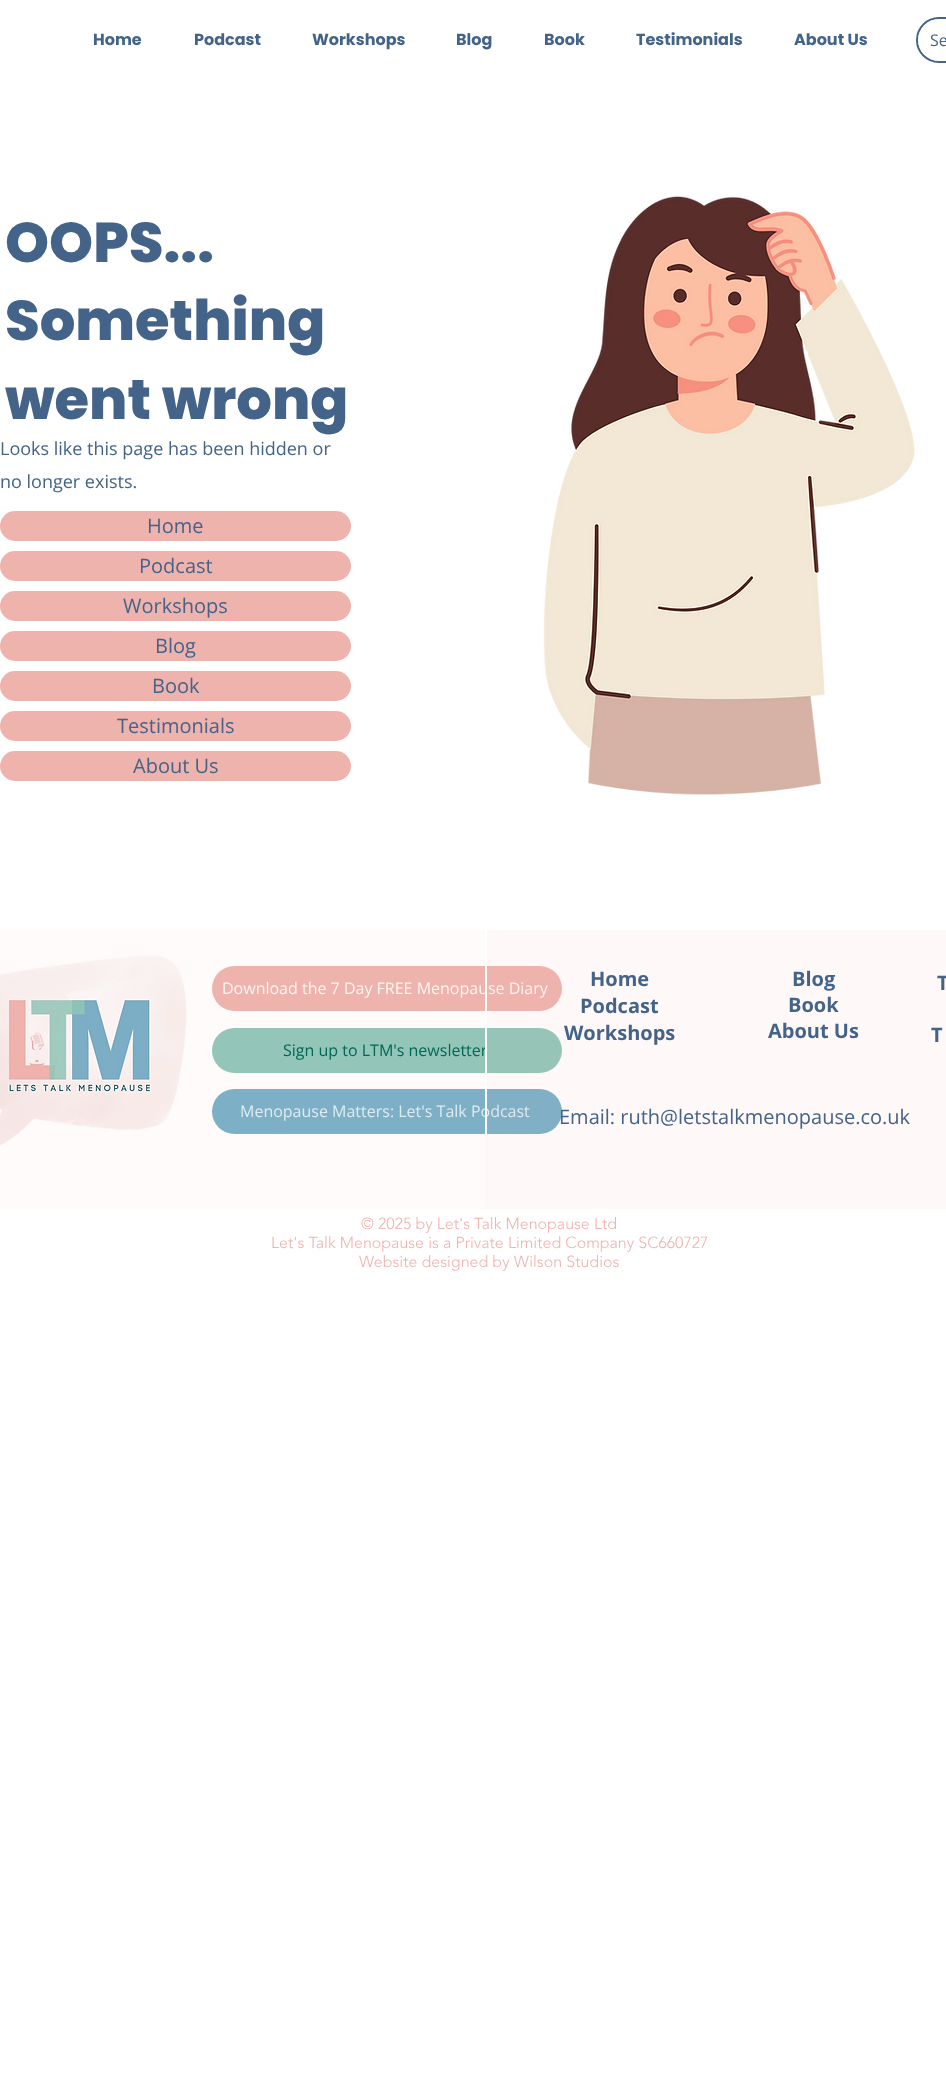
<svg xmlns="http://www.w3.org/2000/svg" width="946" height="2085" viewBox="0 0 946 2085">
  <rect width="100%" height="100%" fill="#ffffff"/>
  <text x="93" y="45" font-family="Poppins" font-size="16" font-weight="bold" fill="#446389">Home</text>
  <text x="194" y="45" font-family="Poppins" font-size="16" font-weight="bold" fill="#446389">Podcast</text>
  <text x="312" y="45" font-family="Poppins" font-size="16" font-weight="bold" fill="#446389">Workshops</text>
  <text x="456" y="45" font-family="Poppins" font-size="16" font-weight="bold" fill="#446389">Blog</text>
  <text x="544" y="45" font-family="Poppins" font-size="16" font-weight="bold" fill="#446389">Book</text>
  <text x="636" y="45" font-family="Poppins" font-size="16" font-weight="bold" fill="#446389">Testimonials</text>
  <text x="794" y="45" font-family="Poppins" font-size="16" font-weight="bold" fill="#446389">About Us</text>
  <rect x="917" y="18" width="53" height="44" rx="22" fill="none" stroke="#446389" stroke-width="2"/>
  <rect x="918" y="19" width="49" height="42" rx="21" fill="#fffffe" fill-opacity="0.71"/>
  <text x="930" y="46" font-family="Open Sans" font-size="16" fill="#446389">Se</text>
  <text x="5" y="262" font-family="Poppins" font-size="56" font-weight="800" fill="#446389">OOPS...</text>
  <text x="5" y="340" font-family="Poppins" font-size="56" font-weight="800" fill="#446389">Something</text>
  <text x="5" y="419" font-family="Poppins" font-size="56" font-weight="800" fill="#446389">went wrong</text>
  <image x="543" y="196" width="372" height="599" href="img1.png"/>
  <text x="0" y="455" font-family="Open Sans" font-size="18" fill="#446389">Looks like this page has been hidden or</text>
  <text x="0" y="488" font-family="Open Sans" font-size="18" fill="#446389">no longer exists.</text>
  <rect x="0" y="511" width="351" height="30" rx="15" fill="#efb3ad"/>
  <text x="147" y="533" font-family="Open Sans" font-size="20" fill="#446389">Home</text>
  <rect x="0" y="551" width="351" height="30" rx="15" fill="#efb3ad"/>
  <text x="139" y="573" font-family="Open Sans" font-size="20" fill="#446389">Podcast</text>
  <rect x="0" y="591" width="351" height="30" rx="15" fill="#efb3ad"/>
  <text x="123" y="613" font-family="Open Sans" font-size="20" fill="#446389">Workshops</text>
  <rect x="0" y="631" width="351" height="30" rx="15" fill="#efb3ad"/>
  <text x="155" y="653" font-family="Open Sans" font-size="20" fill="#446389">Blog</text>
  <rect x="0" y="671" width="351" height="30" rx="15" fill="#efb3ad"/>
  <text x="152" y="693" font-family="Open Sans" font-size="20" fill="#446389">Book</text>
  <rect x="0" y="711" width="351" height="30" rx="15" fill="#efb3ad"/>
  <text x="117" y="733" font-family="Open Sans" font-size="20" fill="#446389">Testimonials</text>
  <rect x="0" y="751" width="351" height="30" rx="15" fill="#efb3ad"/>
  <text x="133" y="773" font-family="Open Sans" font-size="20" fill="#446389">About Us</text>
  <rect x="0" y="930" width="946" height="279" fill="#fffbfb"/>
  <image x="0" y="955" width="187" height="191" href="img2.png"/>
  <rect x="212" y="966" width="350" height="45" rx="22.5" fill="#efb3ad"/>
  <text x="222" y="994" font-family="Open Sans" font-size="16" fill="#fff5f0">Download the 7 Day FREE Menopause Diary</text>
  <rect x="212" y="1028" width="350" height="45" rx="22.5" fill="#93c6b8"/>
  <text x="283" y="1056" font-family="Open Sans" font-size="16" fill="#016855">Sign up to LTM's newsletter</text>
  <rect x="212" y="1089" width="350" height="45" rx="22.5" fill="#7dafc7"/>
  <text x="240" y="1117" font-family="Open Sans" font-size="16" fill="#dfebf0">Menopause Matters: Let's Talk Podcast</text>
  <rect x="485" y="930" width="461" height="279" fill="#efb3ad" fill-opacity="0.04"/>
  <rect x="485" y="930" width="2" height="204" fill="#ffffff"/>
  <text x="590" y="986" font-family="Open Sans" font-size="20" font-weight="bold" fill="#446389">Home</text>
  <text x="580" y="1013" font-family="Open Sans" font-size="20" font-weight="bold" fill="#446389">Podcast</text>
  <text x="564" y="1040" font-family="Open Sans" font-size="20" font-weight="bold" fill="#446389">Workshops</text>
  <text x="792" y="986" font-family="Open Sans" font-size="20" font-weight="bold" fill="#446389">Blog</text>
  <text x="788" y="1012" font-family="Open Sans" font-size="20" font-weight="bold" fill="#446389">Book</text>
  <text x="768" y="1038" font-family="Open Sans" font-size="20" font-weight="bold" fill="#446389">About Us</text>
  <text x="937" y="990" font-family="Open Sans" font-size="20" font-weight="bold" fill="#446389">T</text>
  <text x="931" y="1042" font-family="Open Sans" font-size="20" font-weight="bold" fill="#446389">T</text>
  <text x="559" y="1124" font-family="Open Sans" font-size="20" fill="#446389">Email: ruth@letstalkmenopause.co.uk</text>
  <text x="361" y="1229" font-family="'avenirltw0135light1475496'" font-size="16" font-weight="300" fill="#efb3ad">© 2025 by Let's Talk Menopause Ltd</text>
  <text x="271" y="1248" font-family="'avenirltw0135light1475496'" font-size="16" font-weight="300" fill="#efb3ad">Let's Talk Menopause is a Private Limited Company SC660727</text>
  <text x="359" y="1267" font-family="'avenirltw0135light1475496'" font-size="16" font-weight="300" fill="#efb3ad">Website designed by Wilson Studios</text>
</svg>
